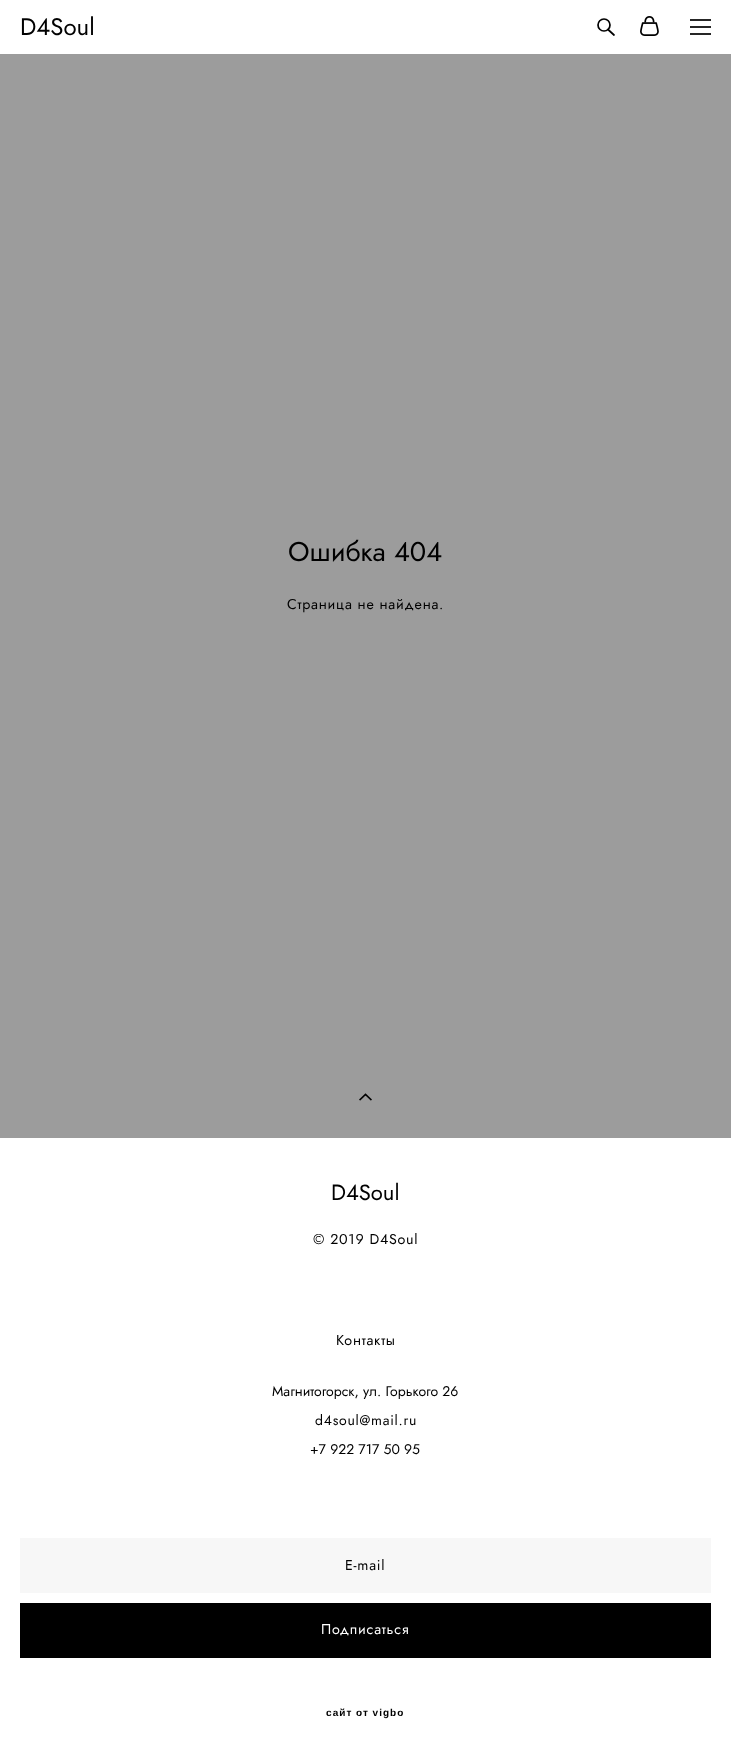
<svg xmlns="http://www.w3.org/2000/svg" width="731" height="1753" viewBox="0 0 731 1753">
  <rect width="100%" height="100%" fill="#9c9c9c"/>
  <rect x="0" y="0" width="731" height="54" fill="#ffffff"/>
  <text x="20" y="35" font-family="Jost" font-size="24" fill="#000000">D4Soul</text>
  <circle cx="604" cy="25" r="6" fill="none" stroke="#000000" stroke-width="1.7"/>
  <path d="M608 29.5L614 35" fill="none" stroke="#000000" stroke-width="1.7" stroke-linecap="round" stroke-linejoin="round"/>
  <image x="640" y="16" width="19" height="20" href="img1.png"/>
  <rect x="690" y="19" width="21" height="2" fill="#262626"/>
  <rect x="690" y="26" width="21" height="2" fill="#262626"/>
  <rect x="690" y="33" width="21" height="2" fill="#262626"/>
  <text x="288" y="561" font-family="Jost" font-size="27.25" fill="#000000">Ошибка 404</text>
  <text x="287" y="609" font-family="Jost" font-size="14.25" letter-spacing="0.75" fill="#000000">Страница не найдена.</text>
  <image x="359" y="1093" width="13" height="8" href="img2.png"/>
  <rect x="0" y="1138" width="731" height="615" fill="#ffffff"/>
  <text x="331" y="1200" font-family="Jost" font-size="22" fill="#000000">D4Soul</text>
  <text x="313" y="1244" font-family="Jost" font-size="14.25" letter-spacing="0.75" fill="#000000">© 2019 D4Soul</text>
  <text x="336" y="1345" font-family="Jost" font-size="14.25" letter-spacing="0.75" fill="#000000">Контакты</text>
  <text x="272" y="1396" font-family="Jost" font-size="14" fill="#000000">Магнитогорск, ул. Горького 26</text>
  <text x="315" y="1425" font-family="Jost" font-size="14" letter-spacing="0.75" fill="#000000">d4soul@mail.ru</text>
  <text x="310" y="1454" font-family="Jost" font-size="14" fill="#000000">+7 922 717 50 95</text>
  <rect x="20" y="1538" width="691" height="55" fill="#f7f7f7"/>
  <text x="345" y="1570" font-family="Jost" font-size="14.25" letter-spacing="0.75" fill="#000000">E-mail</text>
  <rect x="20" y="1603" width="691" height="55" fill="#000000"/>
  <text x="321" y="1634" font-family="Jost" font-size="14.25" letter-spacing="0.75" fill="#ffffff">Подписаться</text>
  <text x="326" y="1716" font-family="Liberation Sans" font-size="10" font-weight="bold" letter-spacing="1" fill="#000000">сайт от vigbo</text>
</svg>
